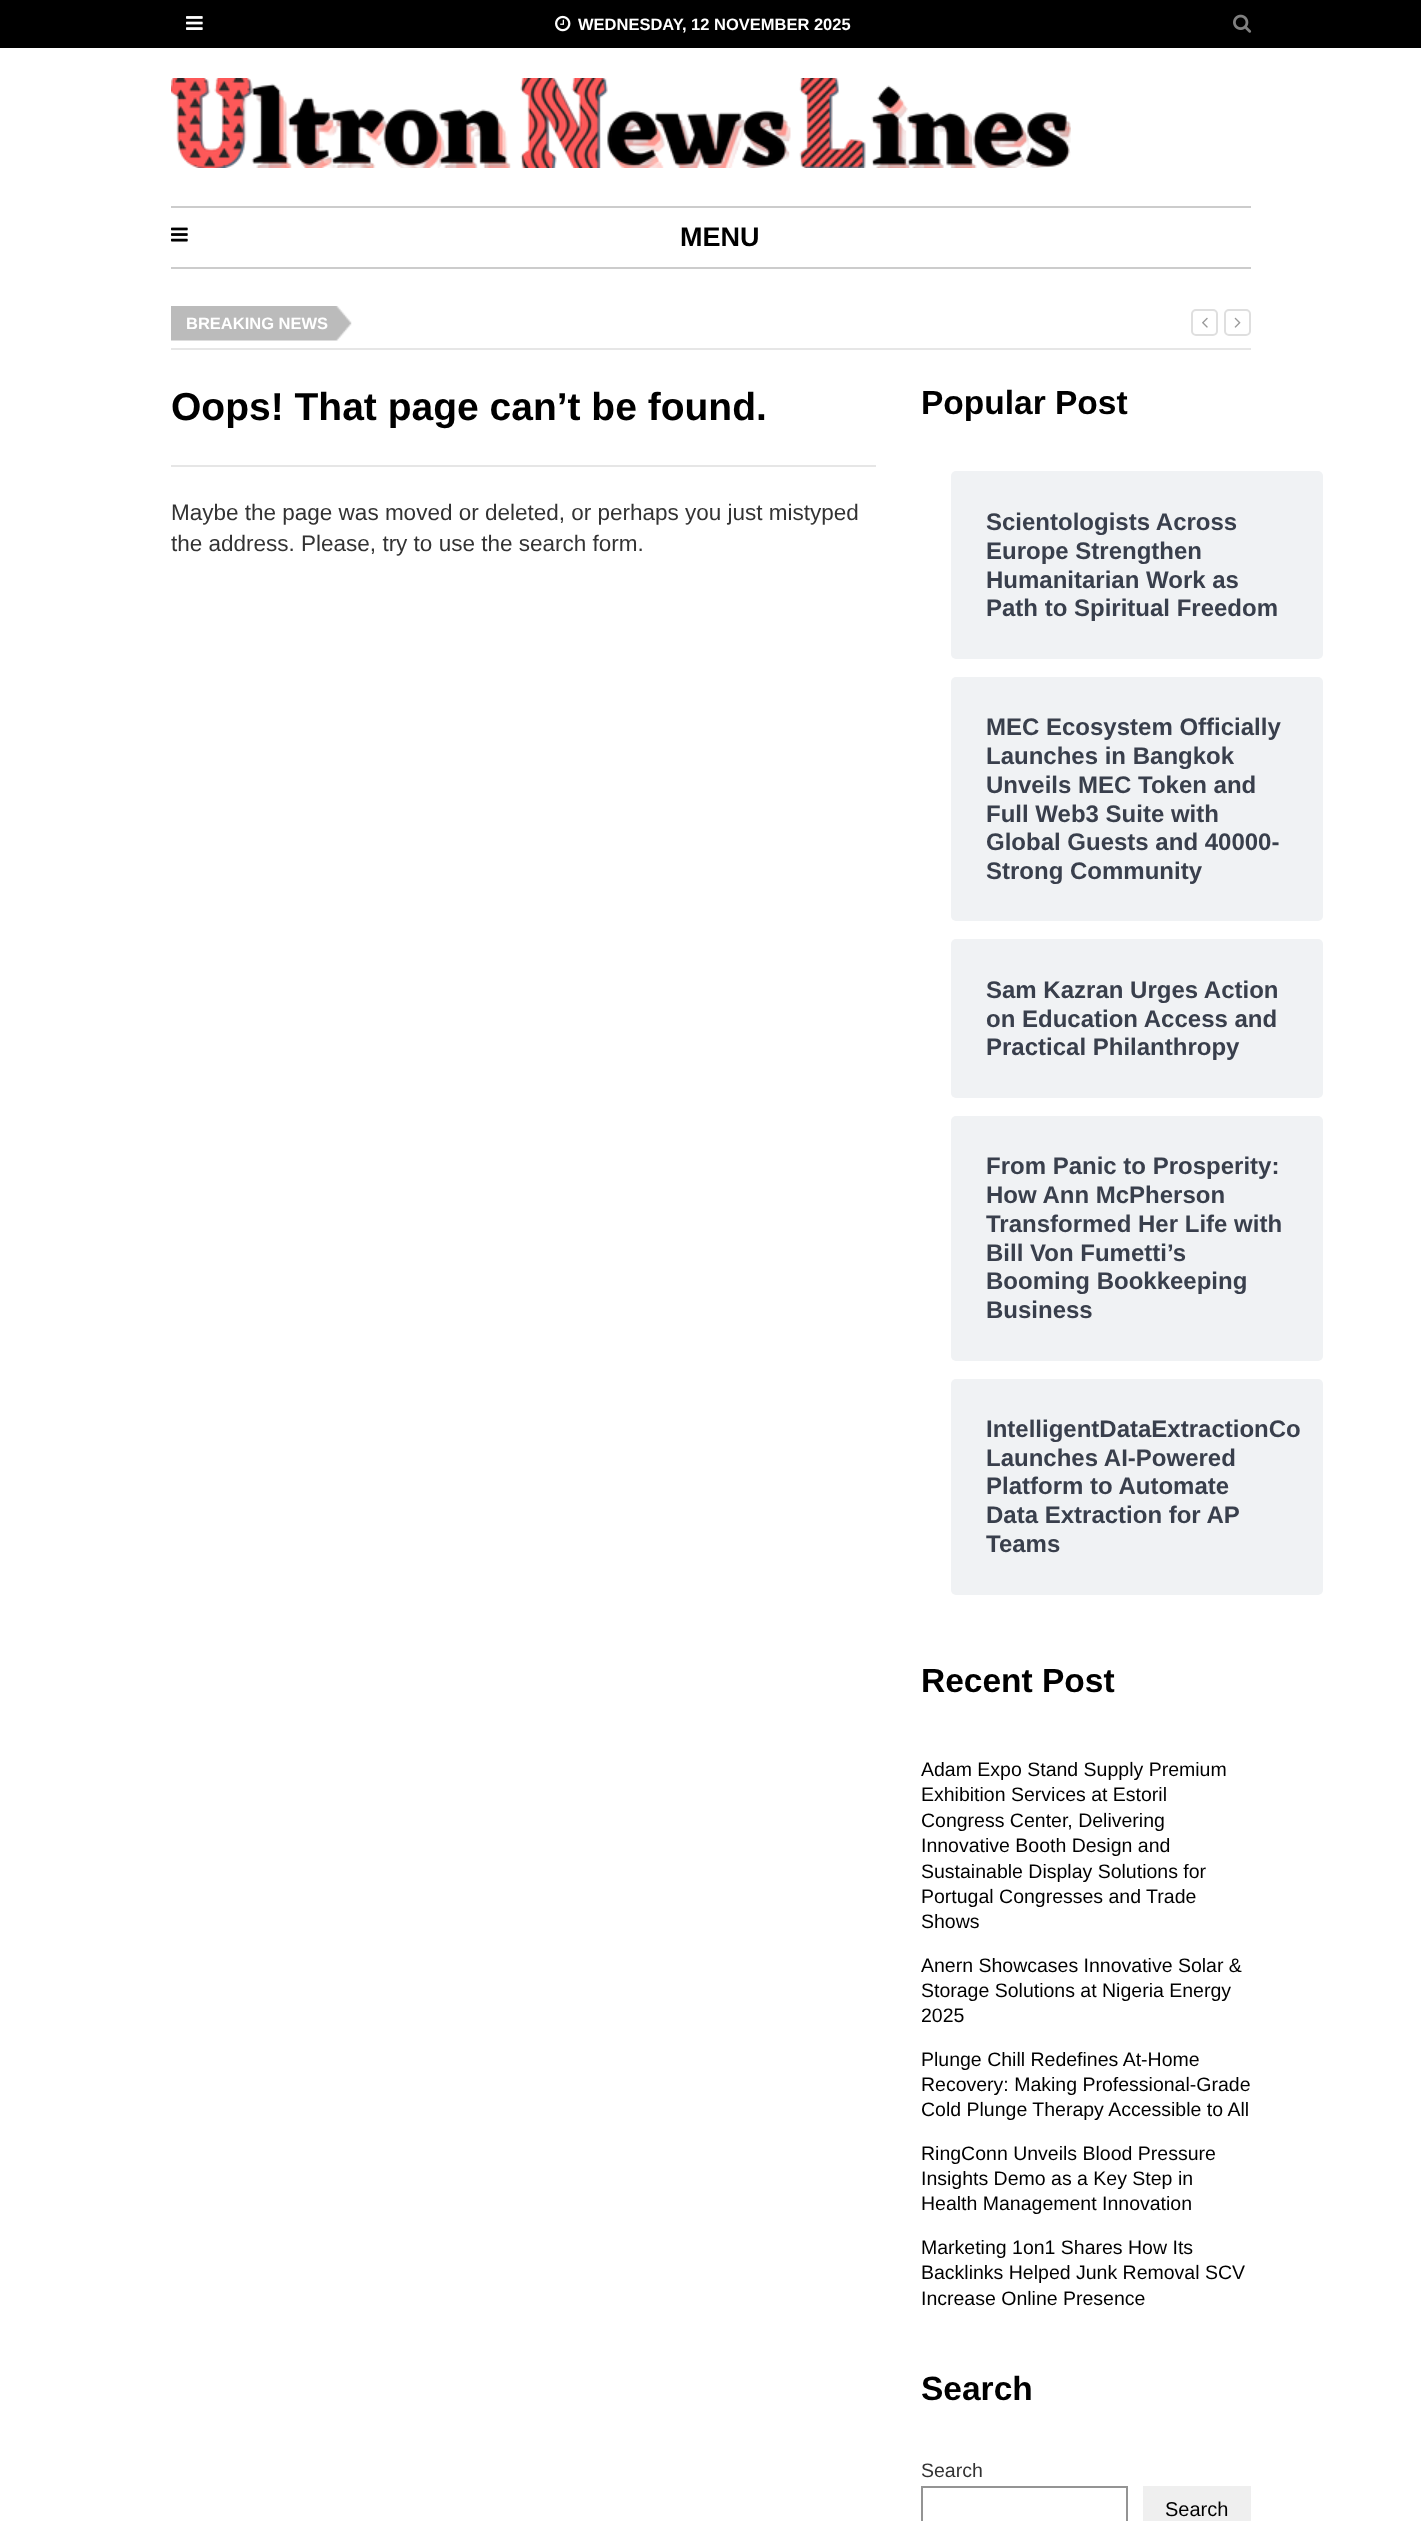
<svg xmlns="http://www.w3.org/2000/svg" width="1421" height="2521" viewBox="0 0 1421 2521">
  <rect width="100%" height="100%" fill="#ffffff"/>
  <rect x="0" y="0" width="1421" height="48" fill="#000000"/>
  <image x="186" y="16" width="17" height="14" href="img1.png"/>
  <image x="555" y="15" width="16" height="17" href="img2.png"/>
  <text x="578" y="30" font-family="Liberation Sans" font-size="16.5" font-weight="bold" fill="#ffffff">WEDNESDAY, 12 NOVEMBER 2025</text>
  <image x="1233" y="14" width="19" height="19" href="img3.png"/>
  <image x="171" y="78" width="900" height="90" href="img4.png"/>
  <rect x="171" y="206" width="1080" height="2" fill="#cccccc"/>
  <rect x="171" y="267" width="1080" height="2" fill="#cccccc"/>
  <image x="171" y="227" width="17" height="15" href="img5.png"/>
  <text x="680" y="246" font-family="Liberation Sans" font-size="27" font-weight="bold" fill="#000000">MENU</text>
  <rect x="171" y="348" width="1080" height="2" fill="#e6e6e6"/>
  <image x="171" y="306" width="181" height="35" href="img6.png"/>
  <text x="186" y="329" font-family="Liberation Sans" font-size="16.5" font-weight="bold" fill="#ffffff">BREAKING NEWS</text>
  <rect x="1192" y="310" width="25" height="25" rx="4" fill="none" stroke="#dfdfdf" stroke-width="2"/>
  <image x="1202" y="317" width="6" height="11" href="img7.png"/>
  <rect x="1225" y="310" width="25" height="25" rx="4" fill="none" stroke="#dfdfdf" stroke-width="2"/>
  <image x="1234" y="317" width="7" height="11" href="img8.png"/>
  <rect x="171" y="465" width="705" height="2" fill="#e6e6e6"/>
  <text x="171" y="420" font-family="Liberation Sans" font-size="39" font-weight="bold" fill="#000000">Oops! That page can’t be found.</text>
  <text x="171" y="520" font-family="Liberation Sans" font-size="22.5" fill="#333333">Maybe the page was moved or deleted, or perhaps you just mistyped</text>
  <text x="171" y="551" font-family="Liberation Sans" font-size="22.5" fill="#333333">the address. Please, try to use the search form.</text>
  <text x="921" y="414" font-family="Liberation Sans" font-size="33.5" font-weight="bold" fill="#000000">Popular Post</text>
  <rect x="951" y="471" width="372" height="188" rx="5" fill="#f0f2f4"/>
  <text x="986" y="530" font-family="Liberation Sans" font-size="24" font-weight="bold" fill="#393f4c">Scientologists Across</text>
  <text x="986" y="559" font-family="Liberation Sans" font-size="24" font-weight="bold" fill="#393f4c">Europe Strengthen</text>
  <text x="986" y="588" font-family="Liberation Sans" font-size="24" font-weight="bold" fill="#393f4c">Humanitarian Work as</text>
  <text x="986" y="616" font-family="Liberation Sans" font-size="24" font-weight="bold" fill="#393f4c">Path to Spiritual Freedom</text>
  <rect x="951" y="677" width="372" height="244" rx="5" fill="#f0f2f4"/>
  <text x="986" y="735" font-family="Liberation Sans" font-size="24" font-weight="bold" fill="#393f4c">MEC Ecosystem Officially</text>
  <text x="986" y="764" font-family="Liberation Sans" font-size="24" font-weight="bold" fill="#393f4c">Launches in Bangkok</text>
  <text x="986" y="793" font-family="Liberation Sans" font-size="24" font-weight="bold" fill="#393f4c">Unveils MEC Token and</text>
  <text x="986" y="822" font-family="Liberation Sans" font-size="24" font-weight="bold" fill="#393f4c">Full Web3 Suite with</text>
  <text x="986" y="850" font-family="Liberation Sans" font-size="24" font-weight="bold" fill="#393f4c">Global Guests and 40000-</text>
  <text x="986" y="879" font-family="Liberation Sans" font-size="24" font-weight="bold" fill="#393f4c">Strong Community</text>
  <rect x="951" y="939" width="372" height="159" rx="5" fill="#f0f2f4"/>
  <text x="986" y="998" font-family="Liberation Sans" font-size="24" font-weight="bold" fill="#393f4c">Sam Kazran Urges Action</text>
  <text x="986" y="1027" font-family="Liberation Sans" font-size="24" font-weight="bold" fill="#393f4c">on Education Access and</text>
  <text x="986" y="1055" font-family="Liberation Sans" font-size="24" font-weight="bold" fill="#393f4c">Practical Philanthropy</text>
  <rect x="951" y="1116" width="372" height="245" rx="5" fill="#f0f2f4"/>
  <text x="986" y="1174" font-family="Liberation Sans" font-size="24" font-weight="bold" fill="#393f4c">From Panic to Prosperity:</text>
  <text x="986" y="1203" font-family="Liberation Sans" font-size="24" font-weight="bold" fill="#393f4c">How Ann McPherson</text>
  <text x="986" y="1232" font-family="Liberation Sans" font-size="24" font-weight="bold" fill="#393f4c">Transformed Her Life with</text>
  <text x="986" y="1261" font-family="Liberation Sans" font-size="24" font-weight="bold" fill="#393f4c">Bill Von Fumetti’s</text>
  <text x="986" y="1289" font-family="Liberation Sans" font-size="24" font-weight="bold" fill="#393f4c">Booming Bookkeeping</text>
  <text x="986" y="1318" font-family="Liberation Sans" font-size="24" font-weight="bold" fill="#393f4c">Business</text>
  <rect x="951" y="1379" width="372" height="216" rx="5" fill="#f0f2f4"/>
  <text x="986" y="1437" font-family="Liberation Sans" font-size="24" font-weight="bold" fill="#393f4c">IntelligentDataExtractionCo</text>
  <text x="986" y="1466" font-family="Liberation Sans" font-size="24" font-weight="bold" fill="#393f4c">Launches AI-Powered</text>
  <text x="986" y="1494" font-family="Liberation Sans" font-size="24" font-weight="bold" fill="#393f4c">Platform to Automate</text>
  <text x="986" y="1523" font-family="Liberation Sans" font-size="24" font-weight="bold" fill="#393f4c">Data Extraction for AP</text>
  <text x="986" y="1552" font-family="Liberation Sans" font-size="24" font-weight="bold" fill="#393f4c">Teams</text>
  <text x="921" y="1692" font-family="Liberation Sans" font-size="33.5" font-weight="bold" fill="#000000">Recent Post</text>
  <text x="921" y="1776" font-family="Liberation Sans" font-size="19.5" fill="#000000">Adam Expo Stand Supply Premium</text>
  <text x="921" y="1801" font-family="Liberation Sans" font-size="19.5" fill="#000000">Exhibition Services at Estoril</text>
  <text x="921" y="1827" font-family="Liberation Sans" font-size="19.5" fill="#000000">Congress Center, Delivering</text>
  <text x="921" y="1852" font-family="Liberation Sans" font-size="19.5" fill="#000000">Innovative Booth Design and</text>
  <text x="921" y="1878" font-family="Liberation Sans" font-size="19.5" fill="#000000">Sustainable Display Solutions for</text>
  <text x="921" y="1903" font-family="Liberation Sans" font-size="19.5" fill="#000000">Portugal Congresses and Trade</text>
  <text x="921" y="1928" font-family="Liberation Sans" font-size="19.5" fill="#000000">Shows</text>
  <text x="921" y="1972" font-family="Liberation Sans" font-size="19.5" fill="#000000">Anern Showcases Innovative Solar &amp;</text>
  <text x="921" y="1997" font-family="Liberation Sans" font-size="19.5" fill="#000000">Storage Solutions at Nigeria Energy</text>
  <text x="921" y="2022" font-family="Liberation Sans" font-size="19.5" fill="#000000">2025</text>
  <text x="921" y="2066" font-family="Liberation Sans" font-size="19.5" fill="#000000">Plunge Chill Redefines At-Home</text>
  <text x="921" y="2091" font-family="Liberation Sans" font-size="19.5" fill="#000000">Recovery: Making Professional-Grade</text>
  <text x="921" y="2116" font-family="Liberation Sans" font-size="19.5" fill="#000000">Cold Plunge Therapy Accessible to All</text>
  <text x="921" y="2160" font-family="Liberation Sans" font-size="19.5" fill="#000000">RingConn Unveils Blood Pressure</text>
  <text x="921" y="2185" font-family="Liberation Sans" font-size="19.5" fill="#000000">Insights Demo as a Key Step in</text>
  <text x="921" y="2210" font-family="Liberation Sans" font-size="19.5" fill="#000000">Health Management Innovation</text>
  <text x="921" y="2254" font-family="Liberation Sans" font-size="19.5" fill="#000000">Marketing 1on1 Shares How Its</text>
  <text x="921" y="2279" font-family="Liberation Sans" font-size="19.5" fill="#000000">Backlinks Helped Junk Removal SCV</text>
  <text x="921" y="2305" font-family="Liberation Sans" font-size="19.5" fill="#000000">Increase Online Presence</text>
  <text x="921" y="2400" font-family="Liberation Sans" font-size="33.5" font-weight="bold" fill="#000000">Search</text>
  <text x="921" y="2477" font-family="Liberation Sans" font-size="19.5" fill="#333333">Search</text>
  <rect x="922" y="2487" width="205" height="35" fill="none" stroke="#949494" stroke-width="2"/>
  <rect x="1143" y="2486" width="108" height="35" fill="#efefef"/>
  <text x="1165" y="2516" font-family="Liberation Sans" font-size="20" fill="#000000">Search</text>
</svg>
